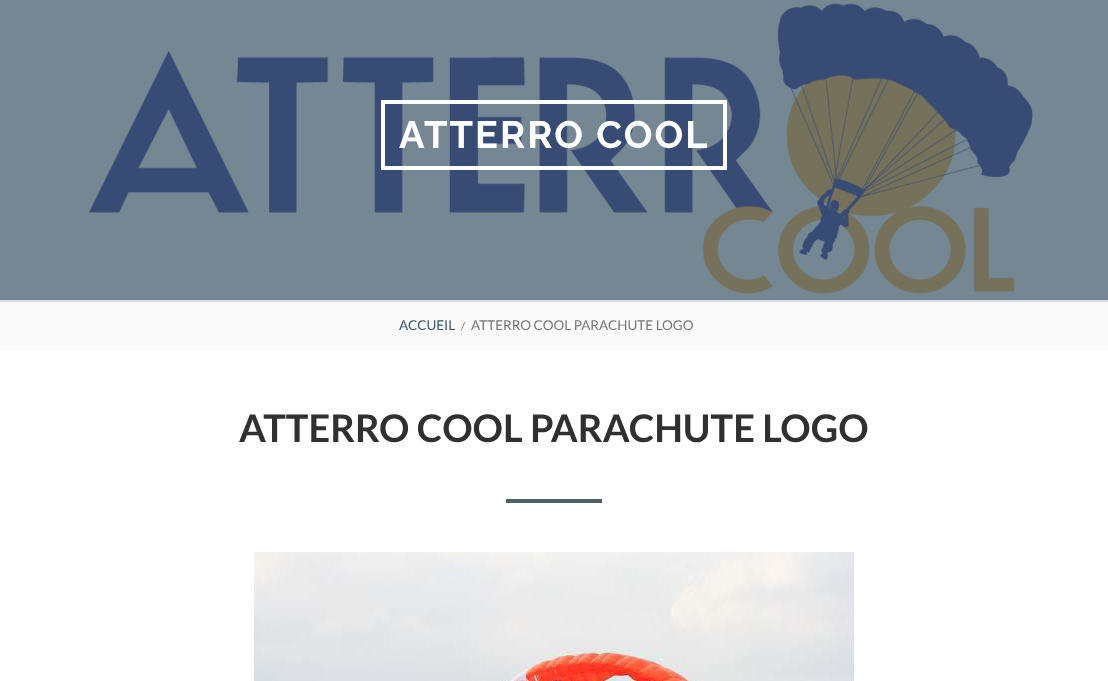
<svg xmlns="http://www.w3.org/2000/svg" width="1108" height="681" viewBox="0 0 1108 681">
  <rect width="100%" height="100%" fill="#fafafa"/>
  <rect x="0" y="0" width="1108" height="300" fill="#748793"/>
  <image x="88" y="3" width="946" height="291" href="img1.png"/>
  <rect x="0" y="300" width="1108" height="2" fill="#dddddd"/>
  <rect x="383" y="102" width="342" height="66" fill="none" stroke="#ffffff" stroke-width="4"/>
  <text x="399" y="148" font-family="Raleway" font-size="38" font-weight="bold" letter-spacing="2" fill="#ffffff">ATTERRO COOL</text>
  <text x="399" y="330" font-family="Lato" font-size="13.5" fill="#3b5667">ACCUEIL</text>
  <text x="461" y="330" font-family="Lato" font-size="11" fill="#777777">/</text>
  <text x="471" y="330" font-family="Lato" font-size="13.5" fill="#777777">ATTERRO COOL PARACHUTE LOGO</text>
  <rect x="0" y="350" width="1108" height="331" fill="#ffffff"/>
  <text x="239" y="442" font-family="Lato" font-size="38" font-weight="bold" fill="#303030">ATTERRO COOL PARACHUTE LOGO</text>
  <rect x="506" y="499" width="96" height="4" fill="#525e66"/>
  <image x="254" y="552" width="600" height="129" href="img2.png"/>
</svg>
